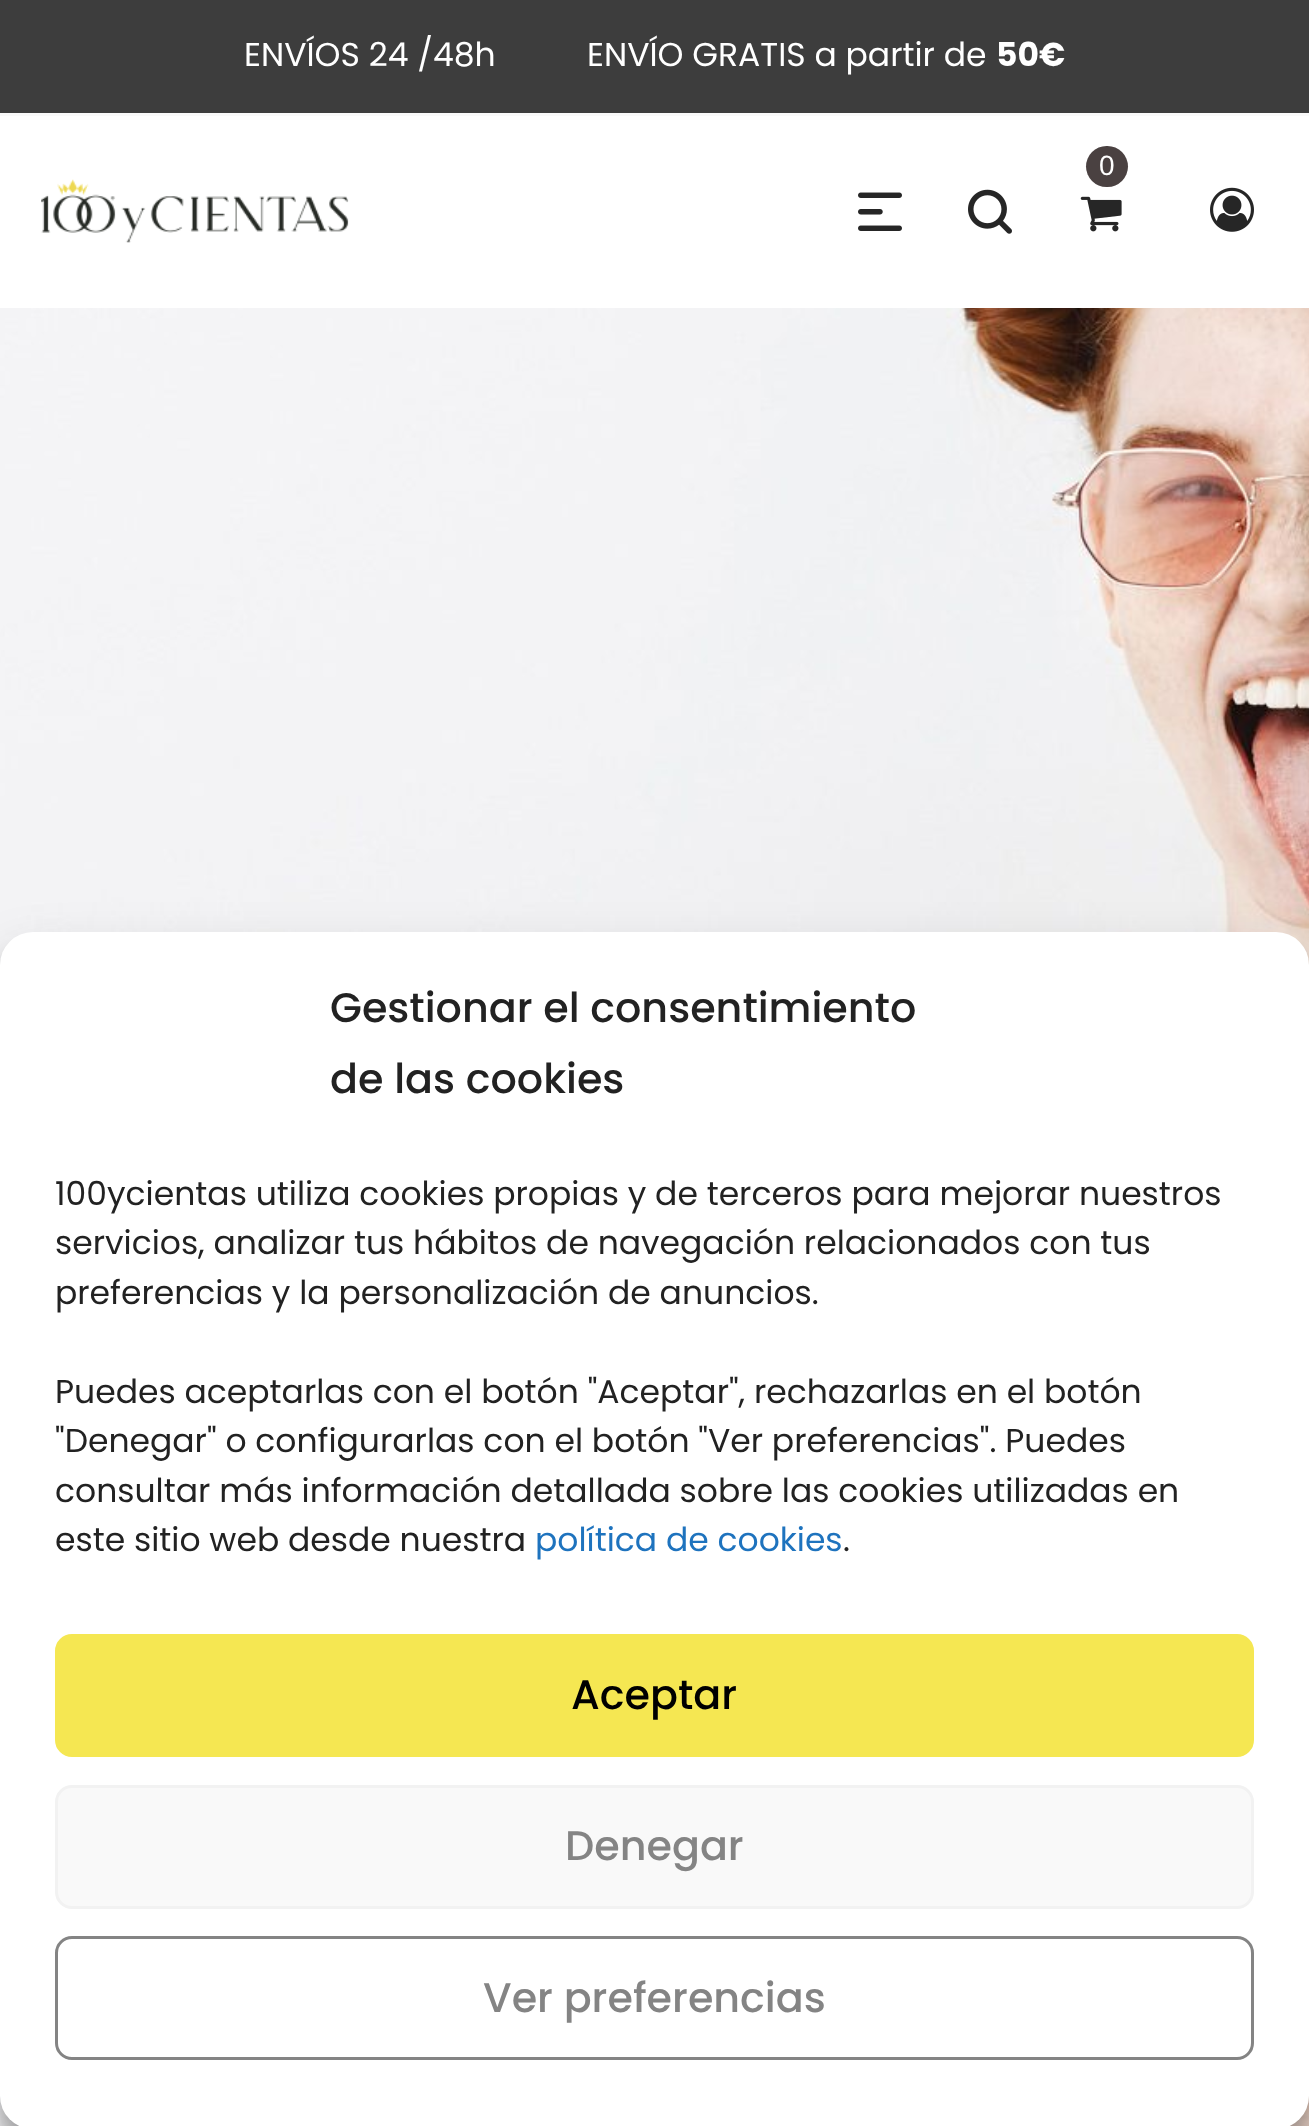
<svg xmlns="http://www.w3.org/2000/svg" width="1309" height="2126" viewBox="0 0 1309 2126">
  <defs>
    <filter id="blur1" x="-50%" y="-200%" width="200%" height="500%"><feGaussianBlur stdDeviation="8"/></filter>
    <filter id="blur2" x="-50%" y="-200%" width="200%" height="500%"><feGaussianBlur stdDeviation="27.5"/></filter>
  </defs>
  <rect width="100%" height="100%" fill="#ffffff"/>
  <image x="0" y="308" width="1309" height="1818" href="img1.png"/>
  <rect x="0" y="0" width="1309" height="113" fill="#3d3d3d"/>
  <rect x="0" y="113" width="1309" height="3" fill="#f9f9f9"/>
  <text x="244" y="66" font-family="Poppins" font-size="33" fill="#ffffff">ENVÍOS 24 /48h</text>
  <text x="587" y="66" font-family="Poppins" font-size="33" fill="#ffffff">ENVÍO GRATIS a partir de</text>
  <text x="996" y="66" font-family="Poppins" font-size="33" font-weight="bold" fill="#ffffff">50€</text>
  <rect x="1086" y="146" width="42" height="41" rx="20.5" fill="#4a4141"/>
  <text x="1099" y="175" font-family="Liberation Sans" font-size="28" fill="#ffffff">0</text>
  <image x="1080" y="196" width="42" height="36" href="img2.png"/>
  <image x="858" y="192" width="44" height="39" href="img3.png"/>
  <image x="968" y="189" width="44" height="45" href="img4.png"/>
  <image x="1210" y="187" width="44" height="45" href="img5.png"/>
  <image x="41" y="179" width="308" height="64" href="img6.png"/>
  <rect x="0" y="949" width="1309" height="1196" rx="33" fill="#000000" fill-opacity="0.23" filter="url(#blur1)"/>
  <rect x="0" y="960" width="1309" height="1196" rx="33" fill="#000000" fill-opacity="0.19" filter="url(#blur2)"/>
  <rect x="0" y="932" width="1309" height="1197" rx="33" fill="#ffffff"/>
  <text x="330" y="1022" font-family="Poppins" font-size="41.25" font-weight="500" fill="#222222">Gestionar el consentimiento</text>
  <text x="330" y="1093" font-family="Poppins" font-size="41.25" font-weight="500" fill="#222222">de las cookies</text>
  <text x="55" y="1205" font-family="Poppins" font-size="33" fill="#222222">100ycientas utiliza cookies propias y de terceros para mejorar nuestros</text>
  <text x="55" y="1254" font-family="Poppins" font-size="33" fill="#222222">servicios, analizar tus hábitos de navegación relacionados con tus</text>
  <text x="55" y="1304" font-family="Poppins" font-size="33" fill="#222222">preferencias y la personalización de anuncios.</text>
  <text x="55" y="1403" font-family="Poppins" font-size="33" fill="#222222">Puedes aceptarlas con el botón "Aceptar", rechazarlas en el botón</text>
  <text x="55" y="1452" font-family="Poppins" font-size="33" fill="#222222">"Denegar" o configurarlas con el botón "Ver preferencias". Puedes</text>
  <text x="55" y="1502" font-family="Poppins" font-size="33" fill="#222222">consultar más información detallada sobre las cookies utilizadas en</text>
  <text x="55" y="1551" font-family="Poppins" font-size="33" fill="#222222">este sitio web desde nuestra</text>
  <text x="535" y="1551" font-family="Poppins" font-size="33" fill="#1e73be">política de cookies</text>
  <text x="843" y="1551" font-family="Poppins" font-size="33" fill="#222222">.</text>
  <rect x="56.5" y="1635.5" width="1196" height="120" rx="15.5" fill="#f5e752" stroke="#f5e752" stroke-width="3"/>
  <text x="571" y="1709" font-family="Poppins" font-size="41.25" font-weight="500" fill="#000000">Aceptar</text>
  <rect x="56.5" y="1786.5" width="1196" height="121" rx="15.5" fill="#f9f9f9" stroke="#f2f2f2" stroke-width="3"/>
  <text x="565" y="1860" font-family="Poppins" font-size="41.25" font-weight="500" fill="#848484">Denegar</text>
  <rect x="56.5" y="1937.5" width="1196" height="121" rx="15.5" fill="none" stroke="#848484" stroke-width="3"/>
  <text x="483" y="2012" font-family="Poppins" font-size="41.25" font-weight="500" fill="#848484">Ver preferencias</text>
</svg>
